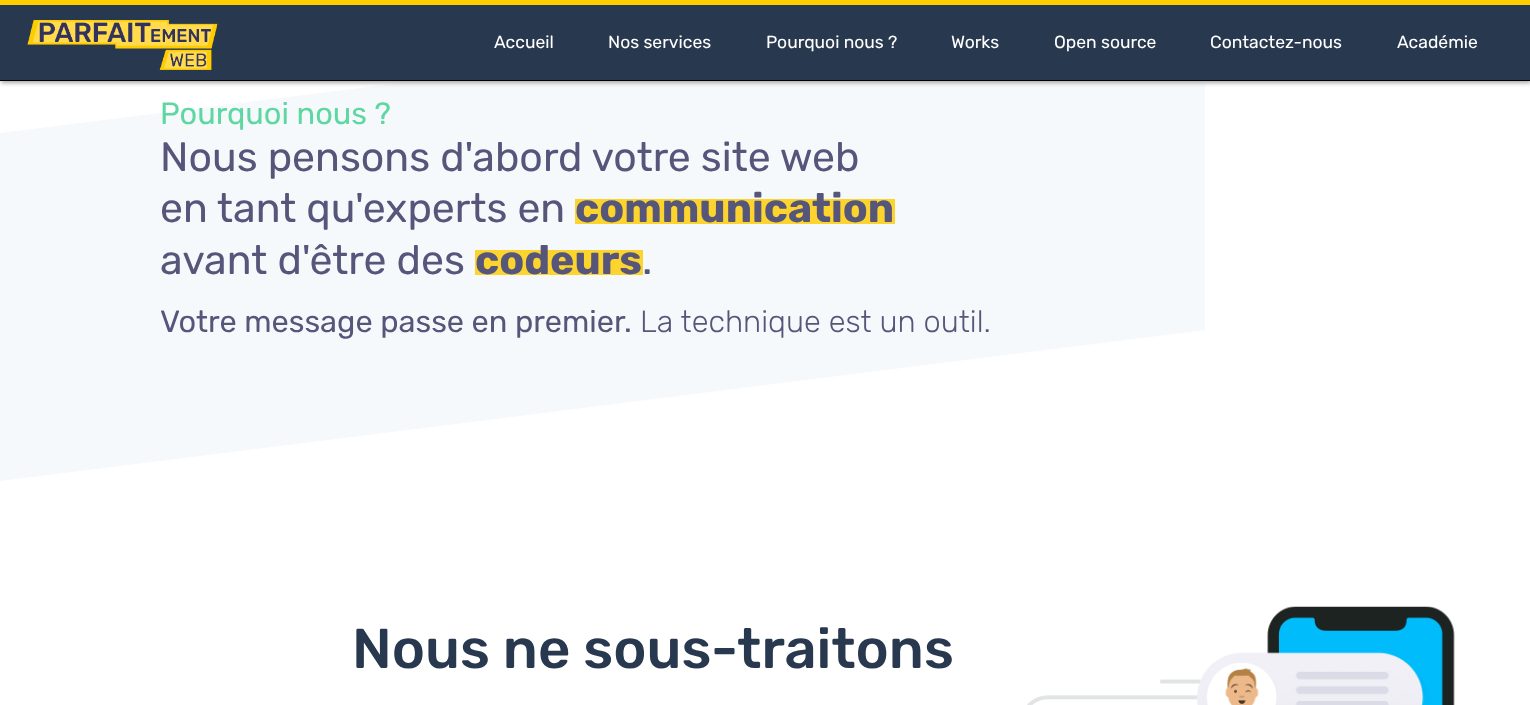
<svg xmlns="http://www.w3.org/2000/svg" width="1530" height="705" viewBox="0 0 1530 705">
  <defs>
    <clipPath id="clip1"><rect x="0" y="0" width="1205" height="481"/></clipPath>
    <filter id="blur1" x="-50%" y="-200%" width="200%" height="500%"><feGaussianBlur stdDeviation="2"/></filter>
  </defs>
  <rect width="100%" height="100%" fill="#ffffff"/>
  <g clip-path="url(#clip1)">
    <path d="M0 133L1206-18V330L0 481Z" fill="#f6f9fc" fill-rule="evenodd"/>
  </g>
  <rect x="1" y="1" width="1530" height="82" fill="#a7a7a7" filter="url(#blur1)"/>
  <rect x="0" y="5" width="1530" height="75" fill="#28384e"/>
  <rect x="0" y="0" width="1530" height="5" fill="#ffcc00"/>
  <rect x="0" y="80" width="1530" height="1" fill="#000000"/>
  <image x="27" y="20" width="191" height="50" href="img1.png"/>
  <text x="494" y="48" font-family="Rubik" font-size="17.5" fill="#ffffff">Accueil</text>
  <text x="608" y="48" font-family="Rubik" font-size="17.5" fill="#ffffff">Nos services</text>
  <text x="766" y="48" font-family="Rubik" font-size="17.5" fill="#ffffff">Pourquoi nous ?</text>
  <text x="951" y="48" font-family="Rubik" font-size="17.5" fill="#ffffff">Works</text>
  <text x="1054" y="48" font-family="Rubik" font-size="17.5" fill="#ffffff">Open source</text>
  <text x="1210" y="48" font-family="Rubik" font-size="17.5" fill="#ffffff">Contactez-nous</text>
  <text x="1397" y="48" font-family="Rubik" font-size="17.5" fill="#ffffff">Académie</text>
  <text x="160" y="124" font-family="Rubik" font-size="30.75" fill="#5fd7a2">Pourquoi nous ?</text>
  <text x="160" y="171" font-family="Rubik" font-size="41" fill="#55567a">Nous pensons d'abord votre site web</text>
  <text x="160" y="222" font-family="Rubik" font-size="41" fill="#55567a">en tant qu'experts en</text>
  <rect x="575" y="199" width="320" height="25" fill="#fdd42d"/>
  <text x="575" y="222" font-family="Rubik" font-size="41" font-weight="bold" fill="#55567a">communication</text>
  <text x="160" y="274" font-family="Rubik" font-size="41" fill="#55567a">avant d'être des</text>
  <rect x="475" y="250" width="168" height="25" fill="#fdd42d"/>
  <text x="475" y="274" font-family="Rubik" font-size="41" font-weight="bold" fill="#55567a">codeurs</text>
  <text x="642" y="274" font-family="Rubik" font-size="41" fill="#55567a">.</text>
  <text x="160" y="332" font-family="Rubik" font-size="30.75" fill="#55567a">Votre message passe en premier.</text>
  <text x="640" y="332" font-family="Rubik" font-size="30.75" font-weight="300" fill="#55567a">La technique est un outil.</text>
  <text x="352" y="668" font-family="Rubik" font-size="56.25" font-weight="500" fill="#28384e">Nous ne sous-traitons</text>
  <image x="1027" y="606" width="428" height="99" href="img2.png"/>
</svg>
